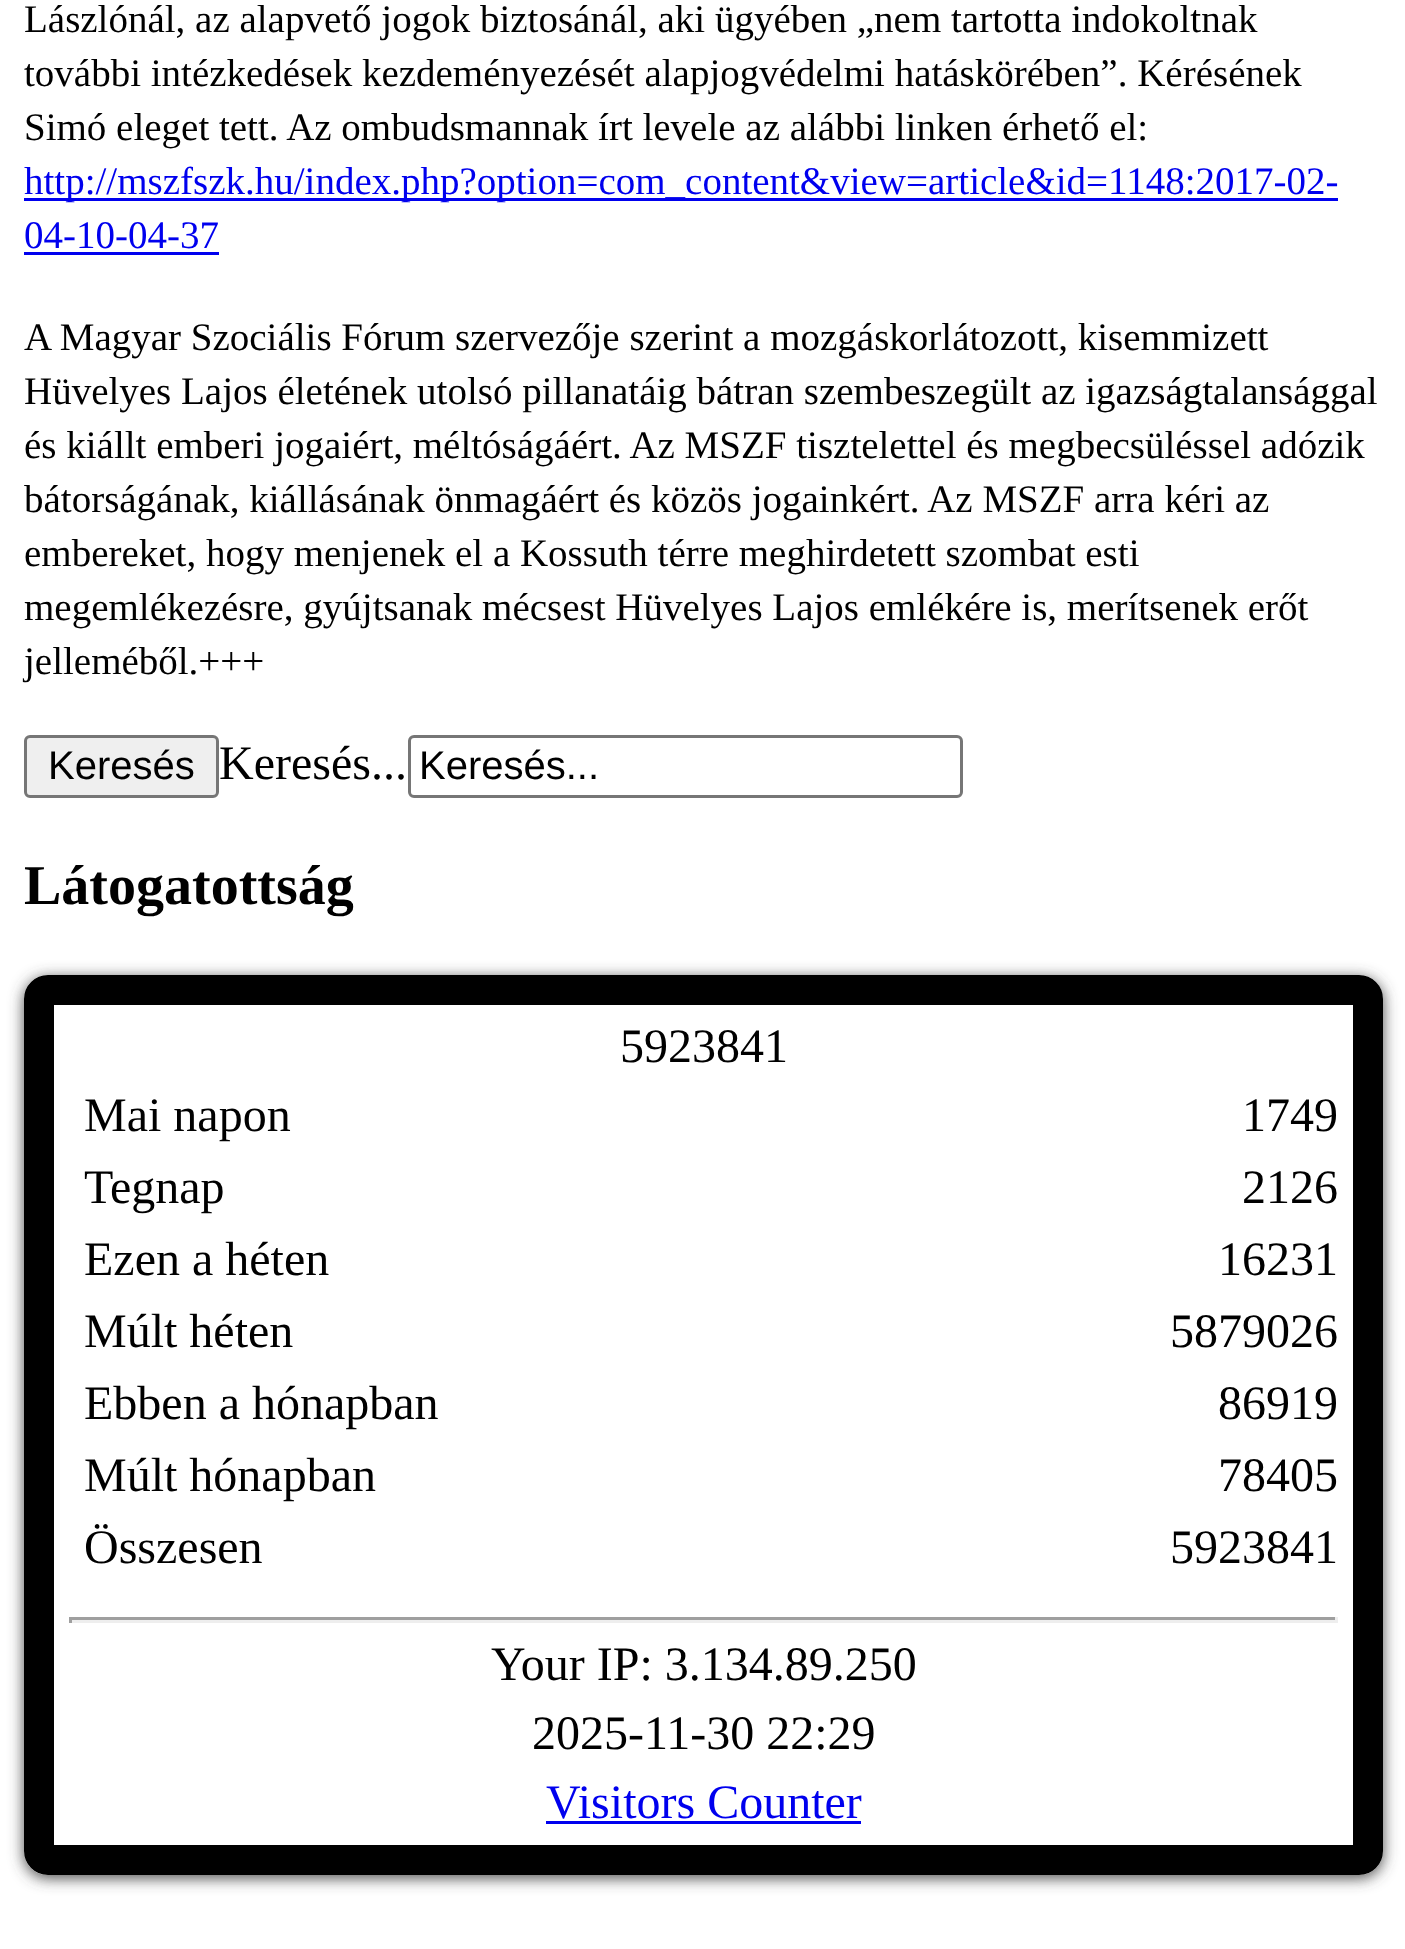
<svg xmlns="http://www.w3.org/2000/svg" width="1405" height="1949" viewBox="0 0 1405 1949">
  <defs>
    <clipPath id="clip1"><path d="M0 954H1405V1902H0ZM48 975H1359C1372.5 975 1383 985.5 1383 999V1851C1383 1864.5 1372.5 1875 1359 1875H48C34.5 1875 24 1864.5 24 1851V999C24 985.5 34.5 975 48 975Z" clip-rule="evenodd"/></clipPath>
    <filter id="blur1" x="-50%" y="-200%" width="200%" height="500%"><feGaussianBlur stdDeviation="7.5"/></filter>
  </defs>
  <rect width="100%" height="100%" fill="#ffffff"/>
  <text x="24" y="32" font-family="Liberation Serif" font-size="39" fill="#000000">Lászlónál, az alapvető jogok biztosánál, aki ügyében „nem tartotta indokoltnak</text>
  <text x="24" y="86" font-family="Liberation Serif" font-size="39" fill="#000000">további intézkedések kezdeményezését alapjogvédelmi hatáskörében”. Kérésének</text>
  <text x="24" y="140" font-family="Liberation Serif" font-size="39" fill="#000000">Simó eleget tett. Az ombudsmannak írt levele az alábbi linken érhető el:</text>
  <rect x="24" y="198" width="1314" height="3" fill="#0000ee"/>
  <text x="24" y="194" font-family="Liberation Serif" font-size="39" fill="#0000ee">http://mszfszk.hu/index.php?option=com_content&amp;view=article&amp;id=1148:2017-02-</text>
  <text x="24" y="248" font-family="Liberation Serif" font-size="39" fill="#0000ee">04-10-04-37</text>
  <rect x="24" y="252" width="195" height="3" fill="#0000ee"/>
  <text x="24" y="350" font-family="Liberation Serif" font-size="39" fill="#000000">A Magyar Szociális Fórum szervezője szerint a mozgáskorlátozott, kisemmizett</text>
  <text x="24" y="404" font-family="Liberation Serif" font-size="39" fill="#000000">Hüvelyes Lajos életének utolsó pillanatáig bátran szembeszegült az igazságtalansággal</text>
  <text x="24" y="458" font-family="Liberation Serif" font-size="39" fill="#000000">és kiállt emberi jogaiért, méltóságáért. Az MSZF tisztelettel és megbecsüléssel adózik</text>
  <text x="24" y="512" font-family="Liberation Serif" font-size="39" fill="#000000">bátorságának, kiállásának önmagáért és közös jogainkért. Az MSZF arra kéri az</text>
  <text x="24" y="566" font-family="Liberation Serif" font-size="39" fill="#000000">embereket, hogy menjenek el a Kossuth térre meghirdetett szombat esti</text>
  <text x="24" y="620" font-family="Liberation Serif" font-size="39" fill="#000000">megemlékezésre, gyújtsanak mécsest Hüvelyes Lajos emlékére is, merítsenek erőt</text>
  <text x="24" y="674" font-family="Liberation Serif" font-size="39" fill="#000000">jelleméből.+++</text>
  <rect x="25.5" y="736.5" width="192" height="60" rx="4.5" fill="#efefef" stroke="#767676" stroke-width="3"/>
  <text x="48" y="779" font-family="Liberation Sans" font-size="40" fill="#000000">Keresés</text>
  <text x="219" y="779" font-family="Liberation Serif" font-size="48" fill="#000000">Keresés...</text>
  <rect x="409.5" y="736.5" width="552" height="60" rx="4.5" fill="none" stroke="#767676" stroke-width="3"/>
  <text x="419" y="779" font-family="Liberation Sans" font-size="40" fill="#000000">Keresés...</text>
  <text x="24" y="904" font-family="Liberation Serif" font-size="56" font-weight="bold" fill="#000000">Látogatottság</text>
  <g clip-path="url(#clip1)">
    <rect x="24" y="978" width="1359" height="900" rx="24" fill="#4a4a4a" filter="url(#blur1)"/>
  </g>
  <rect x="39" y="990" width="1329" height="870" rx="9" fill="none" stroke="#000000" stroke-width="30"/>
  <text x="620" y="1062" font-family="Liberation Serif" font-size="48" fill="#000000">5923841</text>
  <text x="84" y="1131" font-family="Liberation Serif" font-size="48" fill="#000000">Mai napon</text>
  <text x="84" y="1203" font-family="Liberation Serif" font-size="48" fill="#000000">Tegnap</text>
  <text x="84" y="1275" font-family="Liberation Serif" font-size="48" fill="#000000">Ezen a héten</text>
  <text x="84" y="1347" font-family="Liberation Serif" font-size="48" fill="#000000">Múlt héten</text>
  <text x="84" y="1419" font-family="Liberation Serif" font-size="48" fill="#000000">Ebben a hónapban</text>
  <text x="84" y="1491" font-family="Liberation Serif" font-size="48" fill="#000000">Múlt hónapban</text>
  <text x="84" y="1563" font-family="Liberation Serif" font-size="48" fill="#000000">Összesen</text>
  <text x="1242" y="1131" font-family="Liberation Serif" font-size="48" fill="#000000">1749</text>
  <text x="1242" y="1203" font-family="Liberation Serif" font-size="48" fill="#000000">2126</text>
  <text x="1218" y="1275" font-family="Liberation Serif" font-size="48" fill="#000000">16231</text>
  <text x="1170" y="1347" font-family="Liberation Serif" font-size="48" fill="#000000">5879026</text>
  <text x="1218" y="1419" font-family="Liberation Serif" font-size="48" fill="#000000">86919</text>
  <text x="1218" y="1491" font-family="Liberation Serif" font-size="48" fill="#000000">78405</text>
  <text x="1170" y="1563" font-family="Liberation Serif" font-size="48" fill="#000000">5923841</text>
  <rect x="69" y="1617" width="1269" height="3" fill="#9f9f9f"/>
  <rect x="1335" y="1617" width="3" height="6" fill="#eeeeee"/>
  <rect x="69" y="1620" width="1269" height="3" fill="#eeeeee"/>
  <rect x="69" y="1617" width="3" height="6" fill="#9f9f9f"/>
  <text x="491" y="1680" font-family="Liberation Serif" font-size="48" fill="#000000">Your IP: 3.134.89.250</text>
  <text x="532" y="1749" font-family="Liberation Serif" font-size="48" fill="#000000">2025-11-30 22:29</text>
  <text x="546" y="1818" font-family="Liberation Serif" font-size="48" fill="#0000ee">Visitors Counter</text>
  <rect x="546" y="1821" width="315" height="3" fill="#0000ee"/>
</svg>
